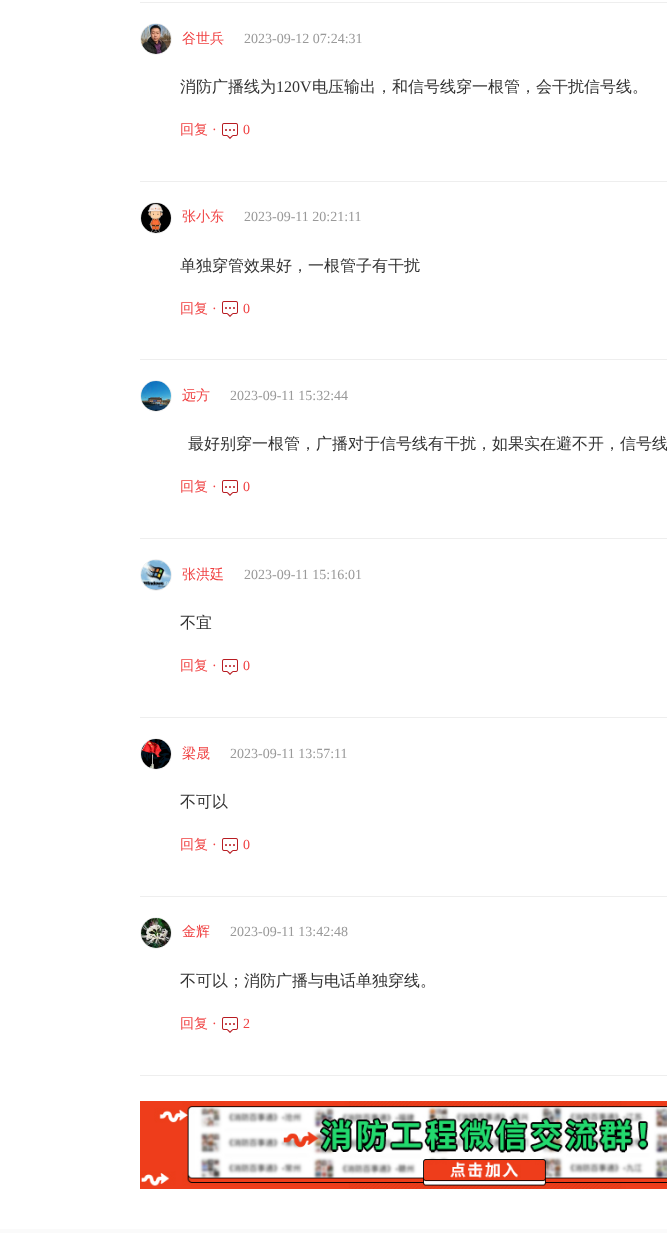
<svg xmlns="http://www.w3.org/2000/svg" width="667" height="1233" viewBox="0 0 667 1233">
  <rect width="100%" height="100%" fill="#ffffff"/>
  <rect x="140" y="2" width="527" height="1" fill="#eeeeee"/>
  <rect x="140" y="181" width="527" height="1" fill="#eeeeee"/>
  <circle cx="156" cy="39" r="15.5" fill="none" stroke="#eeeeee"/>
  <image x="141" y="24" width="30" height="30" href="img1.png"/>
  <text x="182" y="43" font-family="WenQuanYi Zen Hei" font-size="14" font-weight="500" fill="#f04142">谷世兵</text>
  <text x="244" y="43" font-family="Liberation Serif" font-size="14" fill="#999999">2023-09-12 07:24:31</text>
  <text x="180" y="92" font-family="WenQuanYi Zen Hei" font-size="16" font-weight="500" fill="#333333">消防广播线为</text>
  <text x="276" y="92" font-family="Liberation Serif" font-size="16" fill="#333333">120V</text>
  <text x="312" y="92" font-family="WenQuanYi Zen Hei" font-size="16" font-weight="500" fill="#333333">电压输出，和信号线穿一根管，会干扰信号线。</text>
  <text x="180" y="134" font-family="WenQuanYi Zen Hei" font-size="14" font-weight="500" fill="#f04142">回复</text>
  <text x="212" y="134" font-family="Liberation Serif" font-size="14" fill="#f04142">·</text>
  <image x="222" y="123" width="16" height="16" href="img2.png"/>
  <text x="243" y="134" font-family="Liberation Serif" font-size="14" fill="#f04142">0</text>
  <rect x="140" y="359" width="527" height="1" fill="#eeeeee"/>
  <circle cx="156" cy="218" r="15.5" fill="none" stroke="#eeeeee"/>
  <image x="141" y="203" width="30" height="30" href="img3.png"/>
  <text x="182" y="221" font-family="WenQuanYi Zen Hei" font-size="14" font-weight="500" fill="#f04142">张小东</text>
  <text x="244" y="221" font-family="Liberation Serif" font-size="14" fill="#999999">2023-09-11 20:21:11</text>
  <text x="180" y="271" font-family="WenQuanYi Zen Hei" font-size="16" font-weight="500" fill="#333333">单独穿管效果好，一根管子有干扰</text>
  <text x="180" y="313" font-family="WenQuanYi Zen Hei" font-size="14" font-weight="500" fill="#f04142">回复</text>
  <text x="212" y="313" font-family="Liberation Serif" font-size="14" fill="#f04142">·</text>
  <image x="222" y="301" width="16" height="16" href="img2.png"/>
  <text x="243" y="313" font-family="Liberation Serif" font-size="14" fill="#f04142">0</text>
  <rect x="140" y="538" width="527" height="1" fill="#eeeeee"/>
  <circle cx="156" cy="396" r="15.5" fill="none" stroke="#eeeeee"/>
  <image x="141" y="381" width="30" height="30" href="img4.png"/>
  <text x="182" y="400" font-family="WenQuanYi Zen Hei" font-size="14" font-weight="500" fill="#f04142">远方</text>
  <text x="230" y="400" font-family="Liberation Serif" font-size="14" fill="#999999">2023-09-11 15:32:44</text>
  <text x="188" y="449" font-family="WenQuanYi Zen Hei" font-size="16" font-weight="500" fill="#333333">最好别穿一根管，广播对于信号线有干扰，如果实在避不开，信号线</text>
  <text x="180" y="491" font-family="WenQuanYi Zen Hei" font-size="14" font-weight="500" fill="#f04142">回复</text>
  <text x="212" y="491" font-family="Liberation Serif" font-size="14" fill="#f04142">·</text>
  <image x="222" y="480" width="16" height="16" href="img2.png"/>
  <text x="243" y="491" font-family="Liberation Serif" font-size="14" fill="#f04142">0</text>
  <rect x="140" y="717" width="527" height="1" fill="#eeeeee"/>
  <circle cx="156" cy="575" r="15.5" fill="none" stroke="#eeeeee"/>
  <image x="141" y="560" width="30" height="30" href="img5.png"/>
  <text x="182" y="579" font-family="WenQuanYi Zen Hei" font-size="14" font-weight="500" fill="#f04142">张洪廷</text>
  <text x="244" y="579" font-family="Liberation Serif" font-size="14" fill="#999999">2023-09-11 15:16:01</text>
  <text x="180" y="628" font-family="WenQuanYi Zen Hei" font-size="16" font-weight="500" fill="#333333">不宜</text>
  <text x="180" y="670" font-family="WenQuanYi Zen Hei" font-size="14" font-weight="500" fill="#f04142">回复</text>
  <text x="212" y="670" font-family="Liberation Serif" font-size="14" fill="#f04142">·</text>
  <image x="222" y="659" width="16" height="16" href="img2.png"/>
  <text x="243" y="670" font-family="Liberation Serif" font-size="14" fill="#f04142">0</text>
  <rect x="140" y="896" width="527" height="1" fill="#eeeeee"/>
  <circle cx="156" cy="754" r="15.5" fill="none" stroke="#eeeeee"/>
  <image x="141" y="739" width="30" height="30" href="img6.png"/>
  <text x="182" y="758" font-family="WenQuanYi Zen Hei" font-size="14" font-weight="500" fill="#f04142">梁晟</text>
  <text x="230" y="758" font-family="Liberation Serif" font-size="14" fill="#999999">2023-09-11 13:57:11</text>
  <text x="180" y="807" font-family="WenQuanYi Zen Hei" font-size="16" font-weight="500" fill="#333333">不可以</text>
  <text x="180" y="849" font-family="WenQuanYi Zen Hei" font-size="14" font-weight="500" fill="#f04142">回复</text>
  <text x="212" y="849" font-family="Liberation Serif" font-size="14" fill="#f04142">·</text>
  <image x="222" y="838" width="16" height="16" href="img2.png"/>
  <text x="243" y="849" font-family="Liberation Serif" font-size="14" fill="#f04142">0</text>
  <rect x="140" y="1075" width="527" height="1" fill="#eeeeee"/>
  <circle cx="156" cy="933" r="15.5" fill="none" stroke="#eeeeee"/>
  <image x="141" y="918" width="30" height="30" href="img7.png"/>
  <text x="182" y="936" font-family="WenQuanYi Zen Hei" font-size="14" font-weight="500" fill="#f04142">金辉</text>
  <text x="230" y="936" font-family="Liberation Serif" font-size="14" fill="#999999">2023-09-11 13:42:48</text>
  <text x="180" y="986" font-family="WenQuanYi Zen Hei" font-size="16" font-weight="500" fill="#333333">不可以；消防广播与电话单独穿线。</text>
  <text x="180" y="1028" font-family="WenQuanYi Zen Hei" font-size="14" font-weight="500" fill="#f04142">回复</text>
  <text x="212" y="1028" font-family="Liberation Serif" font-size="14" fill="#f04142">·</text>
  <image x="222" y="1017" width="16" height="16" href="img2.png"/>
  <text x="243" y="1028" font-family="Liberation Serif" font-size="14" fill="#f04142">2</text>
  <image x="140" y="1101" width="527" height="88" href="img8.png"/>
  <rect x="0" y="1229" width="667" height="4" fill="#fafafa"/>
</svg>
